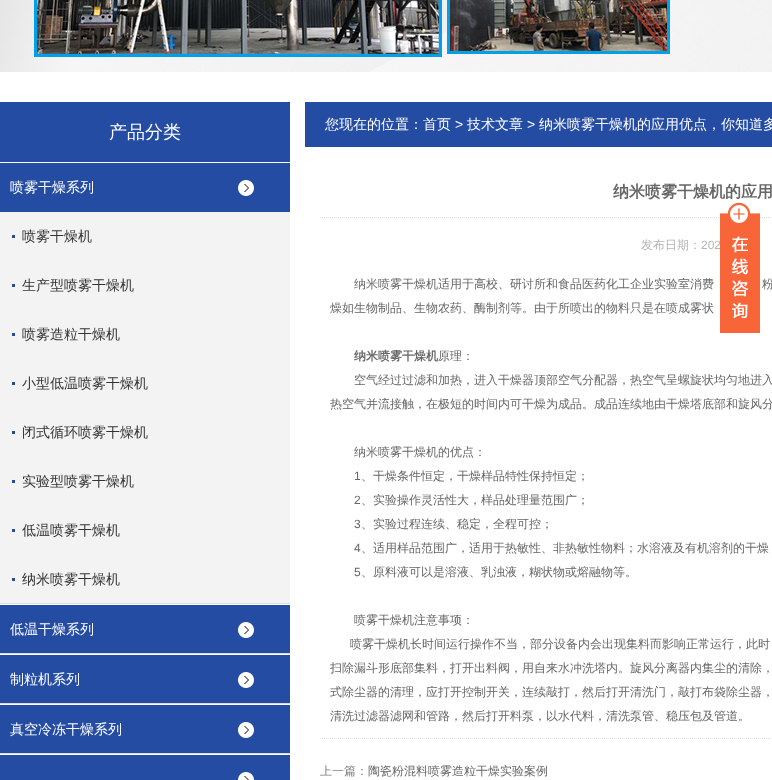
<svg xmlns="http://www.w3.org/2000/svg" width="772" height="780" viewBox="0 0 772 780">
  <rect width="100%" height="100%" fill="#ffffff"/>
  <image x="0" y="0" width="772" height="72" href="img1.png"/>
  <rect x="0" y="102" width="290" height="60" fill="#244ca3"/>
  <text x="109" y="138" font-family="WenQuanYi Zen Hei" font-size="18" font-weight="500" fill="#ffffff">产品分类</text>
  <rect x="0" y="163" width="290" height="49" fill="#244ca3"/>
  <image x="238" y="180" width="16" height="16" href="img2.png"/>
  <rect x="0" y="603" width="290" height="1" fill="#dddddd"/>
  <text x="10" y="192" font-family="WenQuanYi Zen Hei" font-size="14" font-weight="500" fill="#ffffff">喷雾干燥系列</text>
  <rect x="0" y="212" width="290" height="391" fill="#f3f3f3"/>
  <rect x="12" y="235" width="3" height="3" fill="#244ca3"/>
  <text x="22" y="241" font-family="WenQuanYi Zen Hei" font-size="14" font-weight="500" fill="#333333">喷雾干燥机</text>
  <rect x="12" y="284" width="3" height="3" fill="#244ca3"/>
  <text x="22" y="290" font-family="WenQuanYi Zen Hei" font-size="14" font-weight="500" fill="#333333">生产型喷雾干燥机</text>
  <rect x="12" y="333" width="3" height="3" fill="#244ca3"/>
  <text x="22" y="339" font-family="WenQuanYi Zen Hei" font-size="14" font-weight="500" fill="#333333">喷雾造粒干燥机</text>
  <rect x="12" y="382" width="3" height="3" fill="#244ca3"/>
  <text x="22" y="388" font-family="WenQuanYi Zen Hei" font-size="14" font-weight="500" fill="#333333">小型低温喷雾干燥机</text>
  <rect x="12" y="431" width="3" height="3" fill="#244ca3"/>
  <text x="22" y="437" font-family="WenQuanYi Zen Hei" font-size="14" font-weight="500" fill="#333333">闭式循环喷雾干燥机</text>
  <rect x="12" y="480" width="3" height="3" fill="#244ca3"/>
  <text x="22" y="486" font-family="WenQuanYi Zen Hei" font-size="14" font-weight="500" fill="#333333">实验型喷雾干燥机</text>
  <rect x="12" y="529" width="3" height="3" fill="#244ca3"/>
  <text x="22" y="535" font-family="WenQuanYi Zen Hei" font-size="14" font-weight="500" fill="#333333">低温喷雾干燥机</text>
  <rect x="12" y="578" width="3" height="3" fill="#244ca3"/>
  <text x="22" y="584" font-family="WenQuanYi Zen Hei" font-size="14" font-weight="500" fill="#333333">纳米喷雾干燥机</text>
  <rect x="0" y="605" width="290" height="48" fill="#244ca3"/>
  <image x="238" y="622" width="16" height="16" href="img2.png"/>
  <rect x="0" y="653" width="290" height="1" fill="#dddddd"/>
  <text x="10" y="634" font-family="WenQuanYi Zen Hei" font-size="14" font-weight="500" fill="#ffffff">低温干燥系列</text>
  <rect x="0" y="655" width="290" height="48" fill="#244ca3"/>
  <image x="238" y="672" width="16" height="16" href="img2.png"/>
  <rect x="0" y="703" width="290" height="1" fill="#dddddd"/>
  <text x="10" y="684" font-family="WenQuanYi Zen Hei" font-size="14" font-weight="500" fill="#ffffff">制粒机系列</text>
  <rect x="0" y="705" width="290" height="48" fill="#244ca3"/>
  <image x="238" y="722" width="16" height="16" href="img2.png"/>
  <rect x="0" y="753" width="290" height="1" fill="#dddddd"/>
  <text x="10" y="734" font-family="WenQuanYi Zen Hei" font-size="14" font-weight="500" fill="#ffffff">真空冷冻干燥系列</text>
  <rect x="0" y="755" width="290" height="25" fill="#244ca3"/>
  <image x="238" y="772" width="16" height="8" href="img3.png"/>
  <rect x="305" y="102" width="467" height="45" fill="#244ca3"/>
  <text x="325" y="129" font-family="WenQuanYi Zen Hei" font-size="14" font-weight="500" fill="#ffffff">您现在的位置：首页</text>
  <text x="455" y="129" font-family="Liberation Sans" font-size="14" fill="#ffffff">&gt;</text>
  <text x="467" y="129" font-family="WenQuanYi Zen Hei" font-size="14" font-weight="500" fill="#ffffff">技术文章</text>
  <text x="527" y="129" font-family="Liberation Sans" font-size="14" fill="#ffffff">&gt;</text>
  <text x="539" y="129" font-family="WenQuanYi Zen Hei" font-size="14" font-weight="500" fill="#ffffff">纳米喷雾干燥机的应用优点，你知道多</text>
  <path d="M320 217.5H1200" fill="none" stroke="#dddddd" stroke-dasharray="1 1"/>
  <text x="613" y="197" font-family="WenQuanYi Zen Hei" font-size="16" font-weight="bold" fill="#666666">纳米喷雾干燥机的应用</text>
  <text x="641" y="249" font-family="WenQuanYi Zen Hei" font-size="12" font-weight="500" fill="#b4b4b4">发布日期：</text>
  <text x="701" y="249" font-family="Liberation Sans" font-size="12" fill="#b4b4b4">202</text>
  <path d="M320 738.5H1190" fill="none" stroke="#dddddd" stroke-dasharray="1 1"/>
  <text x="354" y="288" font-family="WenQuanYi Zen Hei" font-size="12" font-weight="500" fill="#666666">纳米喷雾干燥机适用于高校、研讨所和食品医药化工企业实验室消费</text>
  <text x="762" y="288" font-family="WenQuanYi Zen Hei" font-size="12" font-weight="500" fill="#666666">粉</text>
  <text x="330" y="312" font-family="WenQuanYi Zen Hei" font-size="12" font-weight="500" fill="#666666">燥如生物制品、生物农药、酶制剂等。由于所喷出的物料只是在喷成雾状</text>
  <text x="354" y="360" font-family="WenQuanYi Zen Hei" font-size="12" font-weight="bold" fill="#666666">纳米喷雾干燥机</text>
  <text x="438" y="360" font-family="WenQuanYi Zen Hei" font-size="12" font-weight="500" fill="#666666">原理：</text>
  <text x="354" y="384" font-family="WenQuanYi Zen Hei" font-size="12" font-weight="500" fill="#666666">空气经过过滤和加热，进入干燥器顶部空气分配器，热空气呈螺旋状均匀地进入</text>
  <text x="330" y="408" font-family="WenQuanYi Zen Hei" font-size="12" font-weight="500" fill="#666666">热空气并流接触，在极短的时间内可干燥为成品。成品连续地由干燥塔底部和旋风分</text>
  <text x="354" y="456" font-family="WenQuanYi Zen Hei" font-size="12" font-weight="500" fill="#666666">纳米喷雾干燥机的优点：</text>
  <text x="354" y="480" font-family="Liberation Sans" font-size="12" fill="#666666">1</text>
  <text x="361" y="480" font-family="WenQuanYi Zen Hei" font-size="12" font-weight="500" fill="#666666">、干燥条件恒定，干燥样品特性保持恒定；</text>
  <text x="354" y="504" font-family="Liberation Sans" font-size="12" fill="#666666">2</text>
  <text x="361" y="504" font-family="WenQuanYi Zen Hei" font-size="12" font-weight="500" fill="#666666">、实验操作灵活性大，样品处理量范围广；</text>
  <text x="354" y="528" font-family="Liberation Sans" font-size="12" fill="#666666">3</text>
  <text x="361" y="528" font-family="WenQuanYi Zen Hei" font-size="12" font-weight="500" fill="#666666">、实验过程连续、稳定，全程可控；</text>
  <text x="354" y="552" font-family="Liberation Sans" font-size="12" fill="#666666">4</text>
  <text x="361" y="552" font-family="WenQuanYi Zen Hei" font-size="12" font-weight="500" fill="#666666">、适用样品范围广，适用于热敏性、非热敏性物料；水溶液及有机溶剂的干燥</text>
  <text x="354" y="576" font-family="Liberation Sans" font-size="12" fill="#666666">5</text>
  <text x="361" y="576" font-family="WenQuanYi Zen Hei" font-size="12" font-weight="500" fill="#666666">、原料液可以是溶液、乳浊液，糊状物或熔融物等。</text>
  <text x="354" y="624" font-family="WenQuanYi Zen Hei" font-size="12" font-weight="500" fill="#666666">喷雾干燥机注意事项：</text>
  <text x="350" y="648" font-family="WenQuanYi Zen Hei" font-size="12" font-weight="500" fill="#666666">喷雾干燥机长时间运行操作不当，部分设备内会出现集料而影响正常运行，此时</text>
  <text x="330" y="672" font-family="WenQuanYi Zen Hei" font-size="12" font-weight="500" fill="#666666">扫除漏斗形底部集料，打开出料阀，用自来水冲洗塔内。旋风分离器内集尘的清除，</text>
  <text x="330" y="696" font-family="WenQuanYi Zen Hei" font-size="12" font-weight="500" fill="#666666">式除尘器的清理，应打开控制开关，连续敲打，然后打开清洗门，敲打布袋除尘器，</text>
  <text x="330" y="720" font-family="WenQuanYi Zen Hei" font-size="12" font-weight="500" fill="#666666">清洗过滤器滤网和管路，然后打开料泵，以水代料，清洗泵管、稳压包及管道。</text>
  <text x="320" y="775" font-family="WenQuanYi Zen Hei" font-size="12" font-weight="500" fill="#80817c">上一篇：</text>
  <text x="368" y="775" font-family="WenQuanYi Zen Hei" font-size="12" font-weight="500" fill="#666666">陶瓷粉混料喷雾造粒干燥实验案例</text>
  <image x="720" y="202" width="40" height="131" href="img4.png"/>
</svg>
